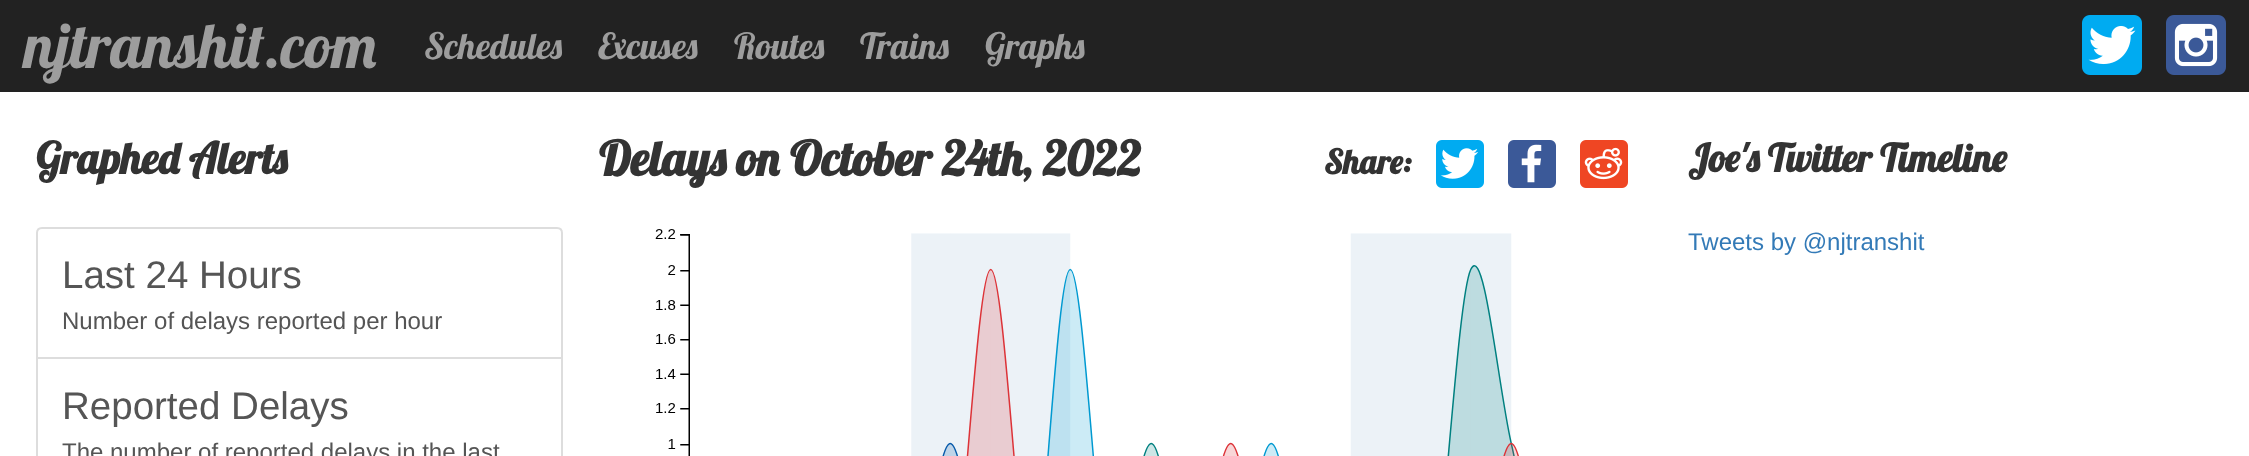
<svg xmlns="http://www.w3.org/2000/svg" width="2249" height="456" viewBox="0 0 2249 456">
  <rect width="100%" height="100%" fill="#ffffff"/>
  <rect x="0" y="0" width="2249" height="92" fill="#222222"/>
  <text x="24" y="68" font-family="Lobster" font-size="62.5" fill="#9d9d9d">njtranshit.com</text>
  <text x="424" y="59" font-family="Lobster" font-size="36" fill="#9d9d9d">Schedules</text>
  <text x="598" y="59" font-family="Lobster" font-size="36" fill="#9d9d9d">Excuses</text>
  <text x="734" y="59" font-family="Lobster" font-size="36" fill="#9d9d9d">Routes</text>
  <text x="860" y="59" font-family="Lobster" font-size="36" fill="#9d9d9d">Trains</text>
  <text x="985" y="59" font-family="Lobster" font-size="36" fill="#9d9d9d">Graphs</text>
  <image x="2082" y="15" width="60" height="60" href="img1.png"/>
  <image x="2166" y="15" width="60" height="60" href="img2.png"/>
  <text x="36" y="174" font-family="Lobster" font-size="43.25" font-weight="bold" fill="#333333">Graphed Alerts</text>
  <path d="M42 228H557C560 228 562 230 562 233V358H37V233C37 230 39 228 42 228Z" fill="none" stroke="#dddddd" stroke-width="2"/>
  <text x="62" y="288" font-family="Liberation Sans" font-size="38.5" fill="#555555">Last 24 Hours</text>
  <text x="62" y="329" font-family="Liberation Sans" font-size="24" fill="#555555">Number of delays reported per hour</text>
  <rect x="37" y="358" width="525" height="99" fill="none" stroke="#dddddd" stroke-width="2"/>
  <text x="62" y="419" font-family="Liberation Sans" font-size="38.5" fill="#555555">Reported Delays</text>
  <text x="62" y="460" font-family="Liberation Sans" font-size="24" fill="#555555">The number of reported delays in the last</text>
  <text x="599" y="176" font-family="Lobster" font-size="48" font-weight="bold" fill="#333333">Delays on October 24th, 2022</text>
  <text x="1324" y="174" font-family="Lobster" font-size="33.5" font-weight="bold" fill="#333333">Share:</text>
  <image x="1436" y="140" width="48" height="48" href="img3.png"/>
  <image x="1508" y="140" width="48" height="48" href="img4.png"/>
  <image x="1580" y="140" width="48" height="48" href="img5.png"/>
  <image x="655" y="229" width="864" height="227" href="img6.png"/>
  <text x="1688" y="172" font-family="Lobster" font-size="38.5" font-weight="bold" fill="#333333">Joe's Twitter Timeline</text>
  <text x="1688" y="250" font-family="Liberation Sans" font-size="24" fill="#337ab7">Tweets by @njtranshit</text>
</svg>
